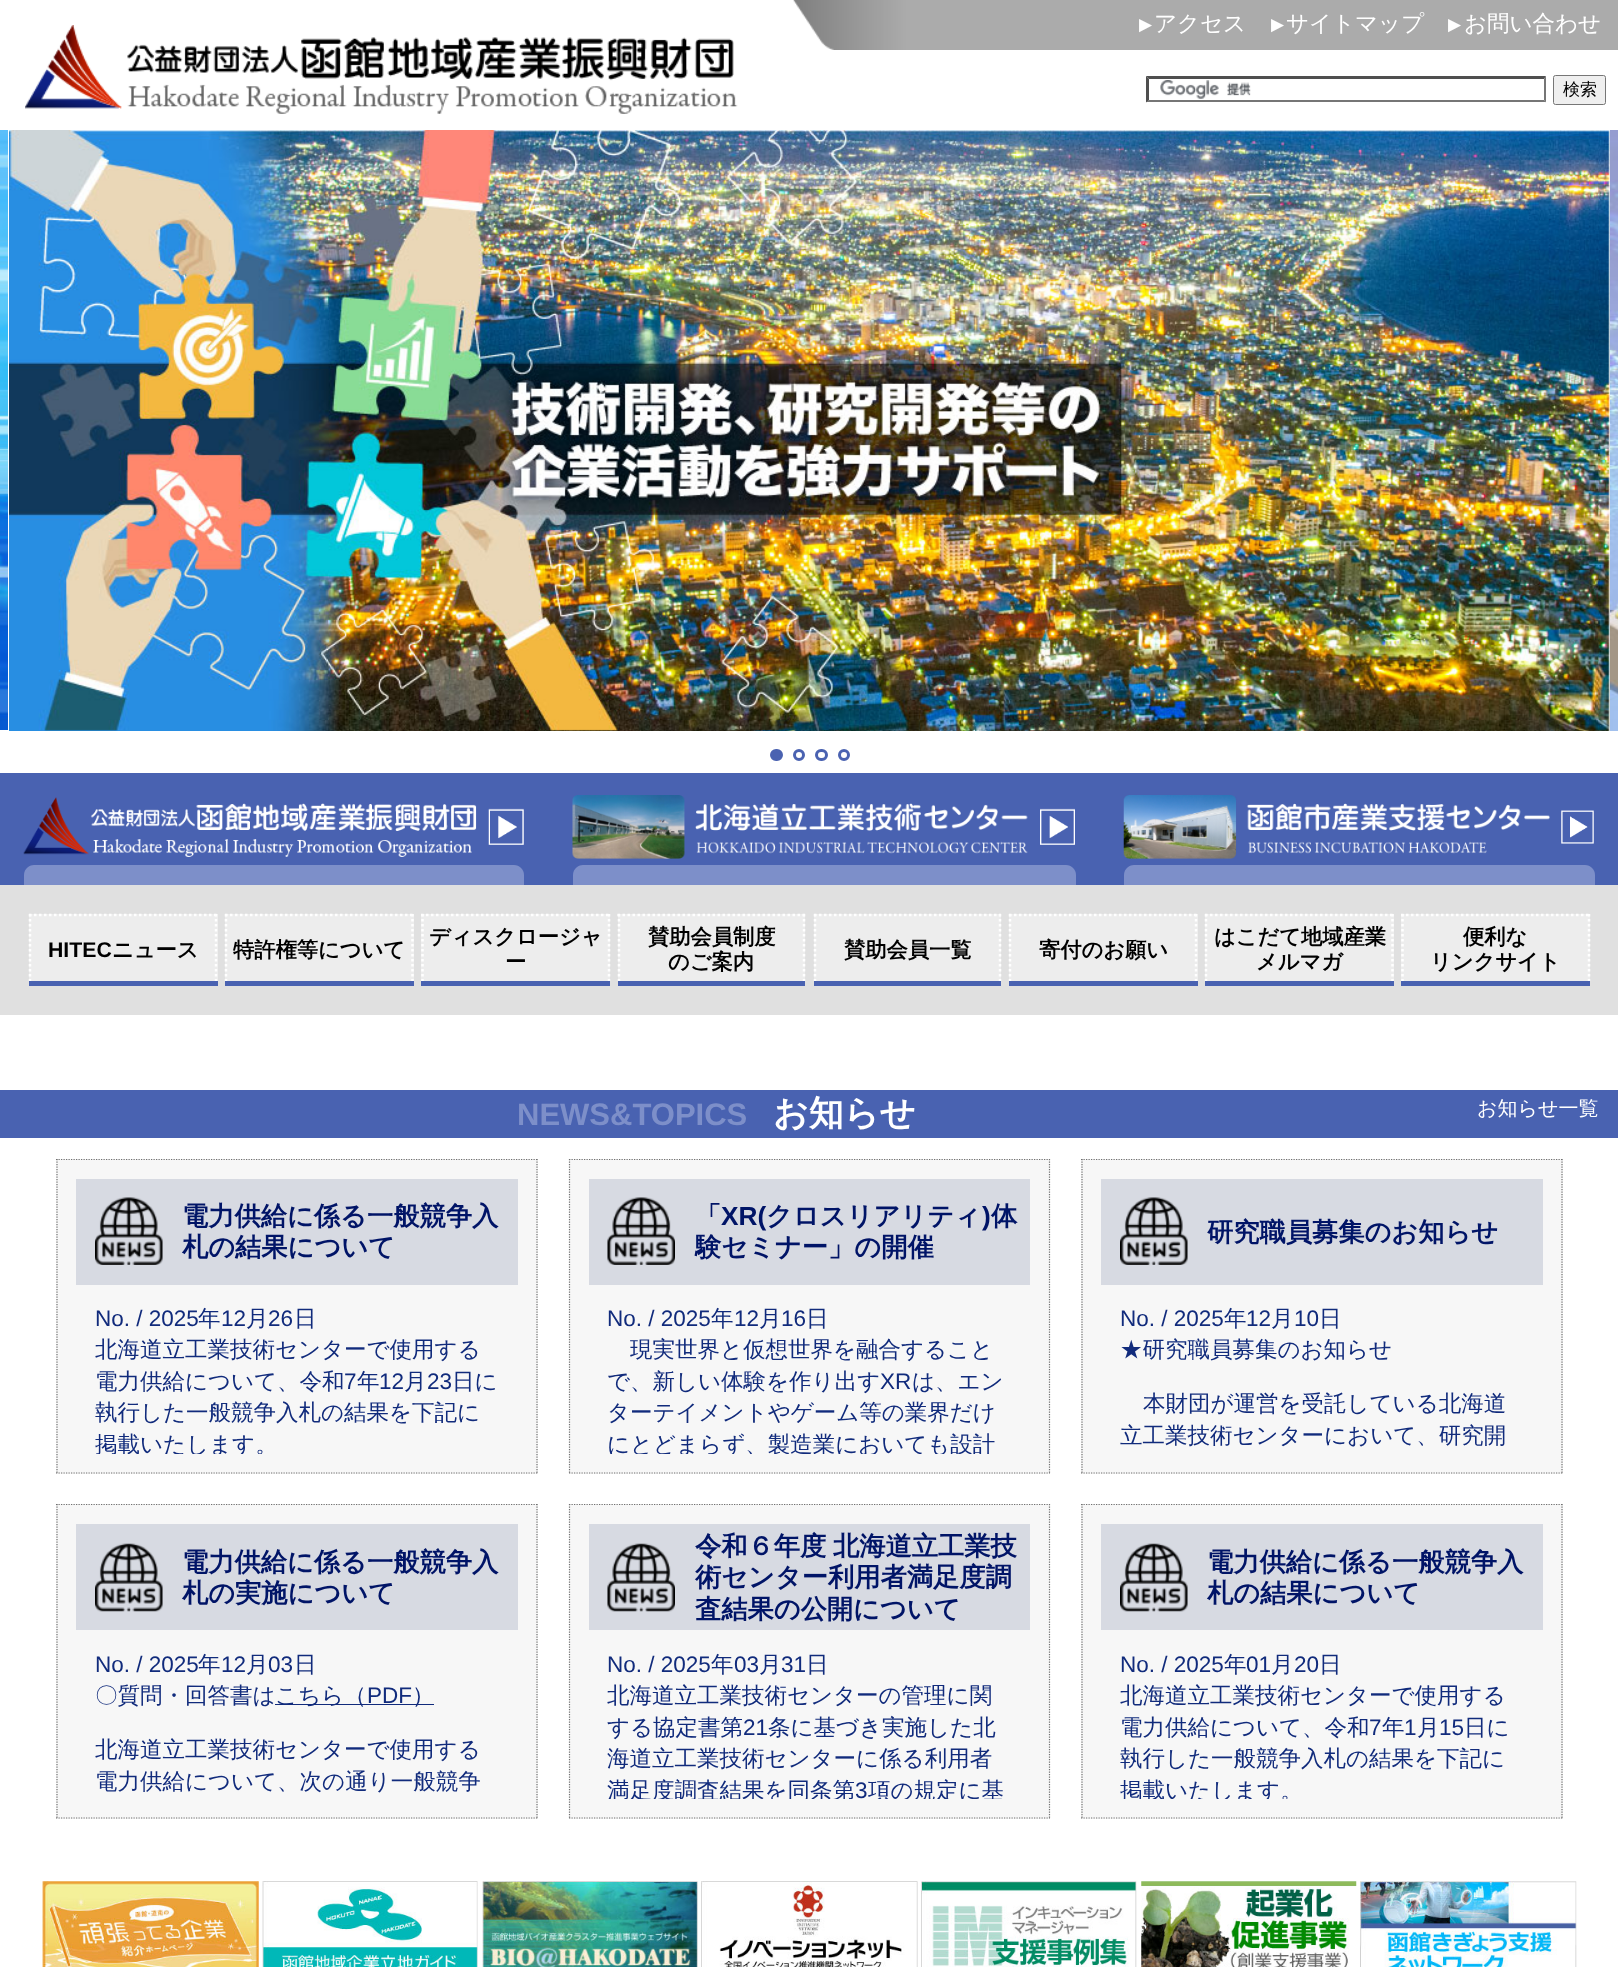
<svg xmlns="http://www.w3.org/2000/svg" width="1618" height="1967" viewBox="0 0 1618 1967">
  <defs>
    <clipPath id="clip1"><rect x="76" y="1285" width="442" height="169"/></clipPath>
    <clipPath id="clip2"><rect x="589" y="1285" width="441" height="169"/></clipPath>
    <clipPath id="clip3"><rect x="589" y="1630" width="441" height="169"/></clipPath>
    <clipPath id="clip4"><rect x="1101" y="1630" width="442" height="169"/></clipPath>
  </defs>
  <rect width="100%" height="100%" fill="#ffffff"/>
  <image x="25" y="25" width="713" height="89" href="img1.png"/>
  <image x="793" y="0" width="825" height="50" href="img2.png"/>
  <text x="1139" y="30" font-family="DejaVu Sans" font-size="16" font-weight="bold" fill="#ffffff">▶︎</text>
  <text x="1154" y="31" font-family="WenQuanYi Zen Hei" font-size="22.5" font-weight="500" fill="#ffffff">アクセス</text>
  <text x="1271" y="30" font-family="DejaVu Sans" font-size="16" font-weight="bold" fill="#ffffff">▶︎</text>
  <text x="1286" y="31" font-family="WenQuanYi Zen Hei" font-size="22.5" font-weight="500" fill="#ffffff">サイトマップ</text>
  <text x="1448" y="30" font-family="DejaVu Sans" font-size="16" font-weight="bold" fill="#ffffff">▶︎</text>
  <text x="1464" y="31" font-family="WenQuanYi Zen Hei" font-size="22.5" font-weight="500" fill="#ffffff">お問い合わせ</text>
  <image x="1160" y="80" width="91" height="19" href="img3.png"/>
  <path d="M1146 76H1546L1544 79H1149Z" fill="#4f4f4f"/>
  <path d="M1546 76V102.5L1544 100V79Z" fill="#767676"/>
  <path d="M1546 102H1146L1149 100H1544Z" fill="#767676"/>
  <path d="M1146 102.5V76L1149 79V100Z" fill="#4f4f4f"/>
  <rect x="1553.5" y="75.5" width="52" height="29" rx="2" fill="#efefef" stroke="#767676"/>
  <text x="1563" y="95" font-family="WenQuanYi Zen Hei" font-size="17" font-weight="500" fill="#000000">検索</text>
  <image x="0" y="130" width="8" height="600" href="img4.png"/>
  <image x="9" y="130" width="1601" height="601" href="img5.png"/>
  <image x="1610" y="130" width="8" height="601" href="img6.png"/>
  <rect x="771.5" y="750.5" width="10" height="9" rx="4.5" fill="#4a62b1" stroke="#4a62b1" stroke-width="3"/>
  <circle cx="799" cy="755" r="4.5" fill="none" stroke="#4a62b1" stroke-width="3"/>
  <rect x="816.5" y="750.5" width="10" height="9" rx="4.5" fill="none" stroke="#4a62b1" stroke-width="3"/>
  <circle cx="844" cy="755" r="4.5" fill="none" stroke="#4a62b1" stroke-width="3"/>
  <rect x="0" y="773" width="1618" height="112" fill="#4962b1"/>
  <image x="488" y="808" width="36" height="37" href="img7.png"/>
  <image x="23" y="797" width="454" height="60" href="img8.png"/>
  <path d="M34 865H514C519.5 865 524 869.5 524 875V885H24V875C24 869.5 28.5 865 34 865Z" fill="#7d8fc9"/>
  <image x="1040" y="808" width="35" height="37" href="img9.png"/>
  <image x="572" y="795" width="456" height="64" href="img10.png"/>
  <path d="M583 865H1066C1071.5 865 1076 869.5 1076 875V885H573V875C573 869.5 577.5 865 583 865Z" fill="#7d8fc9"/>
  <image x="1561" y="810" width="33" height="34" href="img11.png"/>
  <image x="1123" y="795" width="427" height="64" href="img12.png"/>
  <path d="M1134 865H1585C1590.5 865 1595 869.5 1595 875V885H1124V875C1124 869.5 1128.5 865 1134 865Z" fill="#7d8fc9"/>
  <rect x="0" y="885" width="1618" height="130" fill="#e0e0e0"/>
  <rect x="29" y="981" width="189" height="5" fill="#4962b1"/>
  <rect x="29" y="914" width="189" height="67" fill="#ededed"/>
  <path d="M29 915H217.5" fill="none" stroke="#ffffff" stroke-width="2.5" stroke-dasharray="2.5 2.5"/>
  <path d="M216 914V981" fill="none" stroke="#ffffff" stroke-width="2.5" stroke-dasharray="2.5 2.5"/>
  <path d="M30 914V981" fill="none" stroke="#ffffff" stroke-width="2.5" stroke-dasharray="2.5 2.5"/>
  <text x="48" y="957" font-family="Liberation Sans" font-size="21.25" font-weight="bold" fill="#000000">HITEC</text>
  <text x="112" y="957" font-family="WenQuanYi Zen Hei" font-size="21.25" font-weight="bold" fill="#000000">ニュース</text>
  <rect x="225" y="981" width="189" height="5" fill="#4962b1"/>
  <rect x="225" y="914" width="189" height="67" fill="#ededed"/>
  <path d="M225 915H414" fill="none" stroke="#ffffff" stroke-width="2.5" stroke-dasharray="2.5 2.5"/>
  <path d="M412.5 914V981" fill="none" stroke="#ffffff" stroke-width="2.5" stroke-dasharray="2.5 2.5"/>
  <path d="M226 914V981" fill="none" stroke="#ffffff" stroke-width="2.5" stroke-dasharray="2.5 2.5"/>
  <text x="233" y="957" font-family="WenQuanYi Zen Hei" font-size="21.25" font-weight="bold" fill="#000000">特許権等について</text>
  <rect x="421" y="981" width="189" height="5" fill="#4962b1"/>
  <rect x="421" y="914" width="189" height="67" fill="#ededed"/>
  <path d="M421 915H610" fill="none" stroke="#ffffff" stroke-width="2.5" stroke-dasharray="2.5 2.5"/>
  <path d="M609 914V981" fill="none" stroke="#ffffff" stroke-width="2.5" stroke-dasharray="2.5 2.5"/>
  <path d="M422.5 914V981" fill="none" stroke="#ffffff" stroke-width="2.5" stroke-dasharray="2.5 2.5"/>
  <text x="429" y="944" font-family="WenQuanYi Zen Hei" font-size="21.25" font-weight="bold" fill="#000000">ディスクロージャ</text>
  <text x="505" y="969" font-family="WenQuanYi Zen Hei" font-size="21.25" font-weight="bold" fill="#000000">ー</text>
  <rect x="618" y="981" width="187" height="5" fill="#4962b1"/>
  <rect x="618" y="914" width="187" height="67" fill="#ededed"/>
  <path d="M617.5 915H805" fill="none" stroke="#ffffff" stroke-width="2.5" stroke-dasharray="2.5 2.5"/>
  <path d="M804 914V981" fill="none" stroke="#ffffff" stroke-width="2.5" stroke-dasharray="2.5 2.5"/>
  <path d="M619 914V981" fill="none" stroke="#ffffff" stroke-width="2.5" stroke-dasharray="2.5 2.5"/>
  <text x="648" y="944" font-family="WenQuanYi Zen Hei" font-size="21.25" font-weight="bold" fill="#000000">賛助会員制度</text>
  <text x="668" y="969" font-family="WenQuanYi Zen Hei" font-size="21.25" font-weight="bold" fill="#000000">のご案内</text>
  <rect x="814" y="981" width="187" height="5" fill="#4962b1"/>
  <rect x="814" y="914" width="187" height="67" fill="#ededed"/>
  <path d="M814 915H1001" fill="none" stroke="#ffffff" stroke-width="2.5" stroke-dasharray="2.5 2.5"/>
  <path d="M1000 914V981" fill="none" stroke="#ffffff" stroke-width="2.5" stroke-dasharray="2.5 2.5"/>
  <path d="M815 914V981" fill="none" stroke="#ffffff" stroke-width="2.5" stroke-dasharray="2.5 2.5"/>
  <text x="844" y="957" font-family="WenQuanYi Zen Hei" font-size="21.25" font-weight="bold" fill="#000000">賛助会員一覧</text>
  <rect x="1009" y="981" width="189" height="5" fill="#4962b1"/>
  <rect x="1009" y="914" width="189" height="67" fill="#ededed"/>
  <path d="M1009 915H1197.5" fill="none" stroke="#ffffff" stroke-width="2.5" stroke-dasharray="2.5 2.5"/>
  <path d="M1196 914V981" fill="none" stroke="#ffffff" stroke-width="2.5" stroke-dasharray="2.5 2.5"/>
  <path d="M1010 914V981" fill="none" stroke="#ffffff" stroke-width="2.5" stroke-dasharray="2.5 2.5"/>
  <text x="1039" y="957" font-family="WenQuanYi Zen Hei" font-size="21.25" font-weight="bold" fill="#000000">寄付のお願い</text>
  <rect x="1205" y="981" width="189" height="5" fill="#4962b1"/>
  <rect x="1205" y="914" width="189" height="67" fill="#ededed"/>
  <path d="M1205 915H1394" fill="none" stroke="#ffffff" stroke-width="2.5" stroke-dasharray="2.5 2.5"/>
  <path d="M1392.5 914V981" fill="none" stroke="#ffffff" stroke-width="2.5" stroke-dasharray="2.5 2.5"/>
  <path d="M1206 914V981" fill="none" stroke="#ffffff" stroke-width="2.5" stroke-dasharray="2.5 2.5"/>
  <text x="1214" y="944" font-family="WenQuanYi Zen Hei" font-size="21.25" font-weight="bold" fill="#000000">はこだて地域産業</text>
  <text x="1256" y="969" font-family="WenQuanYi Zen Hei" font-size="21.25" font-weight="bold" fill="#000000">メルマガ</text>
  <rect x="1401" y="981" width="189" height="5" fill="#4962b1"/>
  <rect x="1401" y="914" width="189" height="67" fill="#ededed"/>
  <path d="M1401 915H1590" fill="none" stroke="#ffffff" stroke-width="2.5" stroke-dasharray="2.5 2.5"/>
  <path d="M1589 914V981" fill="none" stroke="#ffffff" stroke-width="2.5" stroke-dasharray="2.5 2.5"/>
  <path d="M1402.5 914V981" fill="none" stroke="#ffffff" stroke-width="2.5" stroke-dasharray="2.5 2.5"/>
  <text x="1463" y="944" font-family="WenQuanYi Zen Hei" font-size="21.25" font-weight="bold" fill="#000000">便利な</text>
  <text x="1430" y="969" font-family="WenQuanYi Zen Hei" font-size="21.25" font-weight="bold" fill="#000000">リンクサイト</text>
  <rect x="0" y="1090" width="1618" height="48" fill="#4962b1"/>
  <text x="517" y="1125" font-family="Liberation Sans" font-size="31" font-weight="bold" fill="#7d8fc9">NEWS&amp;TOPICS</text>
  <text x="773" y="1125" font-family="WenQuanYi Zen Hei" font-size="35" font-weight="bold" fill="#ffffff">お知らせ</text>
  <text x="1477" y="1115" font-family="WenQuanYi Zen Hei" font-size="20" font-weight="500" fill="#ffffff">お知らせ一覧</text>
  <rect x="56" y="1159" width="482" height="315" fill="#f7f7f7"/>
  <path d="M56 1159.5H537.5" fill="none" stroke="#707070" stroke-width="1.2" stroke-dasharray="1.25 1.25"/>
  <path d="M537 1159V1474" fill="none" stroke="#707070" stroke-width="1.2" stroke-dasharray="1.25 1.25"/>
  <path d="M56 1473H537.5" fill="none" stroke="#707070" stroke-width="1.2" stroke-dasharray="1.25 1.25"/>
  <path d="M57 1159V1474" fill="none" stroke="#707070" stroke-width="1.2" stroke-dasharray="1.25 1.25"/>
  <rect x="76" y="1179" width="442" height="106" fill="#d7dae2"/>
  <image x="95" y="1197" width="68" height="68" href="img13.png"/>
  <text x="182" y="1225" font-family="WenQuanYi Zen Hei" font-size="26.25" font-weight="bold" fill="#001467">電力供給に係る一般競争入</text>
  <text x="182" y="1256" font-family="WenQuanYi Zen Hei" font-size="26.25" font-weight="bold" fill="#001467">札の結果について</text>
  <text x="95" y="1326" font-family="Liberation Sans" font-size="22.5" fill="#112b7c">No. / 2025</text>
  <text x="198" y="1326" font-family="WenQuanYi Zen Hei" font-size="22.5" font-weight="500" fill="#112b7c">年</text>
  <text x="221" y="1326" font-family="Liberation Sans" font-size="22.5" fill="#112b7c">12</text>
  <text x="246" y="1326" font-family="WenQuanYi Zen Hei" font-size="22.5" font-weight="500" fill="#112b7c">月</text>
  <text x="268" y="1326" font-family="Liberation Sans" font-size="22.5" fill="#112b7c">26</text>
  <text x="294" y="1326" font-family="WenQuanYi Zen Hei" font-size="22.5" font-weight="500" fill="#112b7c">日</text>
  <text x="95" y="1357" font-family="WenQuanYi Zen Hei" font-size="22.5" font-weight="500" fill="#112b7c">北海道立工業技術センターで使用する</text>
  <text x="95" y="1389" font-family="WenQuanYi Zen Hei" font-size="22.5" font-weight="500" fill="#112b7c">電力供給について、令和</text>
  <text x="344" y="1389" font-family="Liberation Sans" font-size="22.5" fill="#112b7c">7</text>
  <text x="357" y="1389" font-family="WenQuanYi Zen Hei" font-size="22.5" font-weight="500" fill="#112b7c">年</text>
  <text x="379" y="1389" font-family="Liberation Sans" font-size="22.5" fill="#112b7c">12</text>
  <text x="404" y="1389" font-family="WenQuanYi Zen Hei" font-size="22.5" font-weight="500" fill="#112b7c">月</text>
  <text x="427" y="1389" font-family="Liberation Sans" font-size="22.5" fill="#112b7c">23</text>
  <text x="452" y="1389" font-family="WenQuanYi Zen Hei" font-size="22.5" font-weight="500" fill="#112b7c">日に</text>
  <text x="95" y="1420" font-family="WenQuanYi Zen Hei" font-size="22.5" font-weight="500" fill="#112b7c">執行した一般競争入札の結果を下記に</text>
  <g clip-path="url(#clip1)">
    <text x="95" y="1452" font-family="WenQuanYi Zen Hei" font-size="22.5" font-weight="500" fill="#112b7c">掲載いたします。</text>
  </g>
  <rect x="569" y="1159" width="481" height="315" fill="#f7f7f7"/>
  <path d="M569 1159.5H1050" fill="none" stroke="#707070" stroke-width="1.2" stroke-dasharray="1.25 1.25"/>
  <path d="M1049.5 1159V1474" fill="none" stroke="#707070" stroke-width="1.2" stroke-dasharray="1.25 1.25"/>
  <path d="M569 1473H1050" fill="none" stroke="#707070" stroke-width="1.2" stroke-dasharray="1.25 1.25"/>
  <path d="M569.5 1159V1474" fill="none" stroke="#707070" stroke-width="1.2" stroke-dasharray="1.25 1.25"/>
  <rect x="589" y="1179" width="441" height="106" fill="#d7dae2"/>
  <image x="607" y="1197" width="68" height="68" href="img14.png"/>
  <text x="695" y="1225" font-family="WenQuanYi Zen Hei" font-size="26.25" font-weight="bold" fill="#001467">「</text>
  <text x="721" y="1225" font-family="Liberation Sans" font-size="26.25" font-weight="bold" fill="#001467">XR(</text>
  <text x="766" y="1225" font-family="WenQuanYi Zen Hei" font-size="26.25" font-weight="bold" fill="#001467">クロスリアリティ</text>
  <text x="982" y="1225" font-family="Liberation Sans" font-size="26.25" font-weight="bold" fill="#001467">)</text>
  <text x="991" y="1225" font-family="WenQuanYi Zen Hei" font-size="26.25" font-weight="bold" fill="#001467">体</text>
  <text x="695" y="1256" font-family="WenQuanYi Zen Hei" font-size="26.25" font-weight="bold" fill="#001467">験セミナー」の開催</text>
  <text x="607" y="1326" font-family="Liberation Sans" font-size="22.5" fill="#112b7c">No. / 2025</text>
  <text x="711" y="1326" font-family="WenQuanYi Zen Hei" font-size="22.5" font-weight="500" fill="#112b7c">年</text>
  <text x="734" y="1326" font-family="Liberation Sans" font-size="22.5" fill="#112b7c">12</text>
  <text x="759" y="1326" font-family="WenQuanYi Zen Hei" font-size="22.5" font-weight="500" fill="#112b7c">月</text>
  <text x="781" y="1326" font-family="Liberation Sans" font-size="22.5" fill="#112b7c">16</text>
  <text x="806" y="1326" font-family="WenQuanYi Zen Hei" font-size="22.5" font-weight="500" fill="#112b7c">日</text>
  <text x="630" y="1357" font-family="WenQuanYi Zen Hei" font-size="22.5" font-weight="500" fill="#112b7c">現実世界と仮想世界を融合すること</text>
  <text x="607" y="1389" font-family="WenQuanYi Zen Hei" font-size="22.5" font-weight="500" fill="#112b7c">で、新しい体験を作り出す</text>
  <text x="880" y="1389" font-family="Liberation Sans" font-size="22.5" fill="#112b7c">XR</text>
  <text x="912" y="1389" font-family="WenQuanYi Zen Hei" font-size="22.5" font-weight="500" fill="#112b7c">は、エン</text>
  <text x="607" y="1420" font-family="WenQuanYi Zen Hei" font-size="22.5" font-weight="500" fill="#112b7c">ターテイメントやゲーム等の業界だけ</text>
  <g clip-path="url(#clip2)">
    <text x="607" y="1452" font-family="WenQuanYi Zen Hei" font-size="22.5" font-weight="500" fill="#112b7c">にとどまらず、製造業においても設計</text>
  </g>
  <rect x="1081" y="1159" width="482" height="315" fill="#f7f7f7"/>
  <path d="M1081 1159.5H1562.5" fill="none" stroke="#707070" stroke-width="1.2" stroke-dasharray="1.25 1.25"/>
  <path d="M1562 1159V1474" fill="none" stroke="#707070" stroke-width="1.2" stroke-dasharray="1.25 1.25"/>
  <path d="M1081 1473H1562.5" fill="none" stroke="#707070" stroke-width="1.2" stroke-dasharray="1.25 1.25"/>
  <path d="M1082 1159V1474" fill="none" stroke="#707070" stroke-width="1.2" stroke-dasharray="1.25 1.25"/>
  <rect x="1101" y="1179" width="442" height="106" fill="#d7dae2"/>
  <image x="1120" y="1197" width="68" height="68" href="img15.png"/>
  <text x="1207" y="1241" font-family="WenQuanYi Zen Hei" font-size="26.25" font-weight="bold" fill="#001467">研究職員募集のお知らせ</text>
  <text x="1120" y="1326" font-family="Liberation Sans" font-size="22.5" fill="#112b7c">No. / 2025</text>
  <text x="1224" y="1326" font-family="WenQuanYi Zen Hei" font-size="22.5" font-weight="500" fill="#112b7c">年</text>
  <text x="1246" y="1326" font-family="Liberation Sans" font-size="22.5" fill="#112b7c">12</text>
  <text x="1271" y="1326" font-family="WenQuanYi Zen Hei" font-size="22.5" font-weight="500" fill="#112b7c">月</text>
  <text x="1294" y="1326" font-family="Liberation Sans" font-size="22.5" fill="#112b7c">10</text>
  <text x="1319" y="1326" font-family="WenQuanYi Zen Hei" font-size="22.5" font-weight="500" fill="#112b7c">日</text>
  <text x="1120" y="1357" font-family="WenQuanYi Zen Hei" font-size="22.5" font-weight="500" fill="#112b7c">★研究職員募集のお知らせ</text>
  <text x="1143" y="1411" font-family="WenQuanYi Zen Hei" font-size="22.5" font-weight="500" fill="#112b7c">本財団が運営を受託している北海道</text>
  <text x="1120" y="1443" font-family="WenQuanYi Zen Hei" font-size="22.5" font-weight="500" fill="#112b7c">立工業技術センターにおいて、研究開</text>
  <rect x="56" y="1504" width="482" height="315" fill="#f7f7f7"/>
  <path d="M56 1504.5H537.5" fill="none" stroke="#707070" stroke-width="1.2" stroke-dasharray="1.25 1.25"/>
  <path d="M537 1504V1819" fill="none" stroke="#707070" stroke-width="1.2" stroke-dasharray="1.25 1.25"/>
  <path d="M56 1818H537.5" fill="none" stroke="#707070" stroke-width="1.2" stroke-dasharray="1.25 1.25"/>
  <path d="M57 1504V1819" fill="none" stroke="#707070" stroke-width="1.2" stroke-dasharray="1.25 1.25"/>
  <rect x="76" y="1524" width="442" height="106" fill="#d7dae2"/>
  <image x="95" y="1543" width="68" height="69" href="img16.png"/>
  <text x="182" y="1571" font-family="WenQuanYi Zen Hei" font-size="26.25" font-weight="bold" fill="#001467">電力供給に係る一般競争入</text>
  <text x="182" y="1602" font-family="WenQuanYi Zen Hei" font-size="26.25" font-weight="bold" fill="#001467">札の実施について</text>
  <text x="95" y="1672" font-family="Liberation Sans" font-size="22.5" fill="#112b7c">No. / 2025</text>
  <text x="198" y="1672" font-family="WenQuanYi Zen Hei" font-size="22.5" font-weight="500" fill="#112b7c">年</text>
  <text x="221" y="1672" font-family="Liberation Sans" font-size="22.5" fill="#112b7c">12</text>
  <text x="246" y="1672" font-family="WenQuanYi Zen Hei" font-size="22.5" font-weight="500" fill="#112b7c">月</text>
  <text x="268" y="1672" font-family="Liberation Sans" font-size="22.5" fill="#112b7c">03</text>
  <text x="294" y="1672" font-family="WenQuanYi Zen Hei" font-size="22.5" font-weight="500" fill="#112b7c">日</text>
  <text x="95" y="1703" font-family="WenQuanYi Zen Hei" font-size="22.5" font-weight="500" fill="#112b7c">〇質問・回答書は</text>
  <rect x="275" y="1704" width="159" height="1" fill="#112b7c"/>
  <text x="275" y="1703" font-family="WenQuanYi Zen Hei" font-size="22.5" font-weight="500" fill="#112b7c">こちら（</text>
  <text x="367" y="1703" font-family="Liberation Sans" font-size="22.5" fill="#112b7c">PDF</text>
  <text x="412" y="1703" font-family="WenQuanYi Zen Hei" font-size="22.5" font-weight="500" fill="#112b7c">）</text>
  <text x="95" y="1757" font-family="WenQuanYi Zen Hei" font-size="22.5" font-weight="500" fill="#112b7c">北海道立工業技術センターで使用する</text>
  <text x="95" y="1789" font-family="WenQuanYi Zen Hei" font-size="22.5" font-weight="500" fill="#112b7c">電力供給について、次の通り一般競争</text>
  <rect x="569" y="1504" width="481" height="315" fill="#f7f7f7"/>
  <path d="M569 1504.5H1050" fill="none" stroke="#707070" stroke-width="1.2" stroke-dasharray="1.25 1.25"/>
  <path d="M1049.5 1504V1819" fill="none" stroke="#707070" stroke-width="1.2" stroke-dasharray="1.25 1.25"/>
  <path d="M569 1818H1050" fill="none" stroke="#707070" stroke-width="1.2" stroke-dasharray="1.25 1.25"/>
  <path d="M569.5 1504V1819" fill="none" stroke="#707070" stroke-width="1.2" stroke-dasharray="1.25 1.25"/>
  <rect x="589" y="1524" width="441" height="106" fill="#d7dae2"/>
  <image x="607" y="1543" width="68" height="69" href="img17.png"/>
  <text x="695" y="1555" word-spacing="-1" font-family="WenQuanYi Zen Hei" font-size="26.25" font-weight="bold" fill="#001467">令和６年度 北海道立工業技</text>
  <text x="695" y="1586" font-family="WenQuanYi Zen Hei" font-size="26.25" font-weight="bold" fill="#001467">術センター利用者満足度調</text>
  <text x="695" y="1618" font-family="WenQuanYi Zen Hei" font-size="26.25" font-weight="bold" fill="#001467">査結果の公開について</text>
  <text x="607" y="1672" font-family="Liberation Sans" font-size="22.5" fill="#112b7c">No. / 2025</text>
  <text x="711" y="1672" font-family="WenQuanYi Zen Hei" font-size="22.5" font-weight="500" fill="#112b7c">年</text>
  <text x="734" y="1672" font-family="Liberation Sans" font-size="22.5" fill="#112b7c">03</text>
  <text x="759" y="1672" font-family="WenQuanYi Zen Hei" font-size="22.5" font-weight="500" fill="#112b7c">月</text>
  <text x="781" y="1672" font-family="Liberation Sans" font-size="22.5" fill="#112b7c">31</text>
  <text x="806" y="1672" font-family="WenQuanYi Zen Hei" font-size="22.5" font-weight="500" fill="#112b7c">日</text>
  <text x="607" y="1703" font-family="WenQuanYi Zen Hei" font-size="22.5" font-weight="500" fill="#112b7c">北海道立工業技術センターの管理に関</text>
  <text x="607" y="1735" font-family="WenQuanYi Zen Hei" font-size="22.5" font-weight="500" fill="#112b7c">する協定書第</text>
  <text x="743" y="1735" font-family="Liberation Sans" font-size="22.5" fill="#112b7c">21</text>
  <text x="768" y="1735" font-family="WenQuanYi Zen Hei" font-size="22.5" font-weight="500" fill="#112b7c">条に基づき実施した北</text>
  <text x="607" y="1766" font-family="WenQuanYi Zen Hei" font-size="22.5" font-weight="500" fill="#112b7c">海道立工業技術センターに係る利用者</text>
  <g clip-path="url(#clip3)">
    <text x="607" y="1798" font-family="WenQuanYi Zen Hei" font-size="22.5" font-weight="500" fill="#112b7c">満足度調査結果を同条第</text>
  </g>
  <text x="855" y="1798" font-family="Liberation Sans" font-size="22.5" fill="#112b7c">3</text>
  <g clip-path="url(#clip3)">
    <text x="868" y="1798" font-family="WenQuanYi Zen Hei" font-size="22.5" font-weight="500" fill="#112b7c">項の規定に基</text>
  </g>
  <rect x="1081" y="1504" width="482" height="315" fill="#f7f7f7"/>
  <path d="M1081 1504.5H1562.5" fill="none" stroke="#707070" stroke-width="1.2" stroke-dasharray="1.25 1.25"/>
  <path d="M1562 1504V1819" fill="none" stroke="#707070" stroke-width="1.2" stroke-dasharray="1.25 1.25"/>
  <path d="M1081 1818H1562.5" fill="none" stroke="#707070" stroke-width="1.2" stroke-dasharray="1.25 1.25"/>
  <path d="M1082 1504V1819" fill="none" stroke="#707070" stroke-width="1.2" stroke-dasharray="1.25 1.25"/>
  <rect x="1101" y="1524" width="442" height="106" fill="#d7dae2"/>
  <image x="1120" y="1543" width="68" height="69" href="img18.png"/>
  <text x="1207" y="1571" font-family="WenQuanYi Zen Hei" font-size="26.25" font-weight="bold" fill="#001467">電力供給に係る一般競争入</text>
  <text x="1207" y="1602" font-family="WenQuanYi Zen Hei" font-size="26.25" font-weight="bold" fill="#001467">札の結果について</text>
  <text x="1120" y="1672" font-family="Liberation Sans" font-size="22.5" fill="#112b7c">No. / 2025</text>
  <text x="1224" y="1672" font-family="WenQuanYi Zen Hei" font-size="22.5" font-weight="500" fill="#112b7c">年</text>
  <text x="1246" y="1672" font-family="Liberation Sans" font-size="22.5" fill="#112b7c">01</text>
  <text x="1271" y="1672" font-family="WenQuanYi Zen Hei" font-size="22.5" font-weight="500" fill="#112b7c">月</text>
  <text x="1294" y="1672" font-family="Liberation Sans" font-size="22.5" fill="#112b7c">20</text>
  <text x="1319" y="1672" font-family="WenQuanYi Zen Hei" font-size="22.5" font-weight="500" fill="#112b7c">日</text>
  <text x="1120" y="1703" font-family="WenQuanYi Zen Hei" font-size="22.5" font-weight="500" fill="#112b7c">北海道立工業技術センターで使用する</text>
  <text x="1120" y="1735" font-family="WenQuanYi Zen Hei" font-size="22.5" font-weight="500" fill="#112b7c">電力供給について、令和</text>
  <text x="1369" y="1735" font-family="Liberation Sans" font-size="22.5" fill="#112b7c">7</text>
  <text x="1382" y="1735" font-family="WenQuanYi Zen Hei" font-size="22.5" font-weight="500" fill="#112b7c">年</text>
  <text x="1404" y="1735" font-family="Liberation Sans" font-size="22.5" fill="#112b7c">1</text>
  <text x="1417" y="1735" font-family="WenQuanYi Zen Hei" font-size="22.5" font-weight="500" fill="#112b7c">月</text>
  <text x="1439" y="1735" font-family="Liberation Sans" font-size="22.5" fill="#112b7c">15</text>
  <text x="1464" y="1735" font-family="WenQuanYi Zen Hei" font-size="22.5" font-weight="500" fill="#112b7c">日に</text>
  <text x="1120" y="1766" font-family="WenQuanYi Zen Hei" font-size="22.5" font-weight="500" fill="#112b7c">執行した一般競争入札の結果を下記に</text>
  <g clip-path="url(#clip4)">
    <text x="1120" y="1798" font-family="WenQuanYi Zen Hei" font-size="22.5" font-weight="500" fill="#112b7c">掲載いたします。</text>
  </g>
  <image x="42" y="1881" width="217" height="86" href="img19.png"/>
  <image x="262" y="1881" width="216" height="86" href="img20.png"/>
  <image x="482" y="1881" width="216" height="86" href="img21.png"/>
  <image x="701" y="1881" width="217" height="86" href="img22.png"/>
  <image x="921" y="1881" width="216" height="86" href="img23.png"/>
  <image x="1141" y="1881" width="216" height="86" href="img24.png"/>
  <image x="1360" y="1881" width="217" height="86" href="img25.png"/>
</svg>
